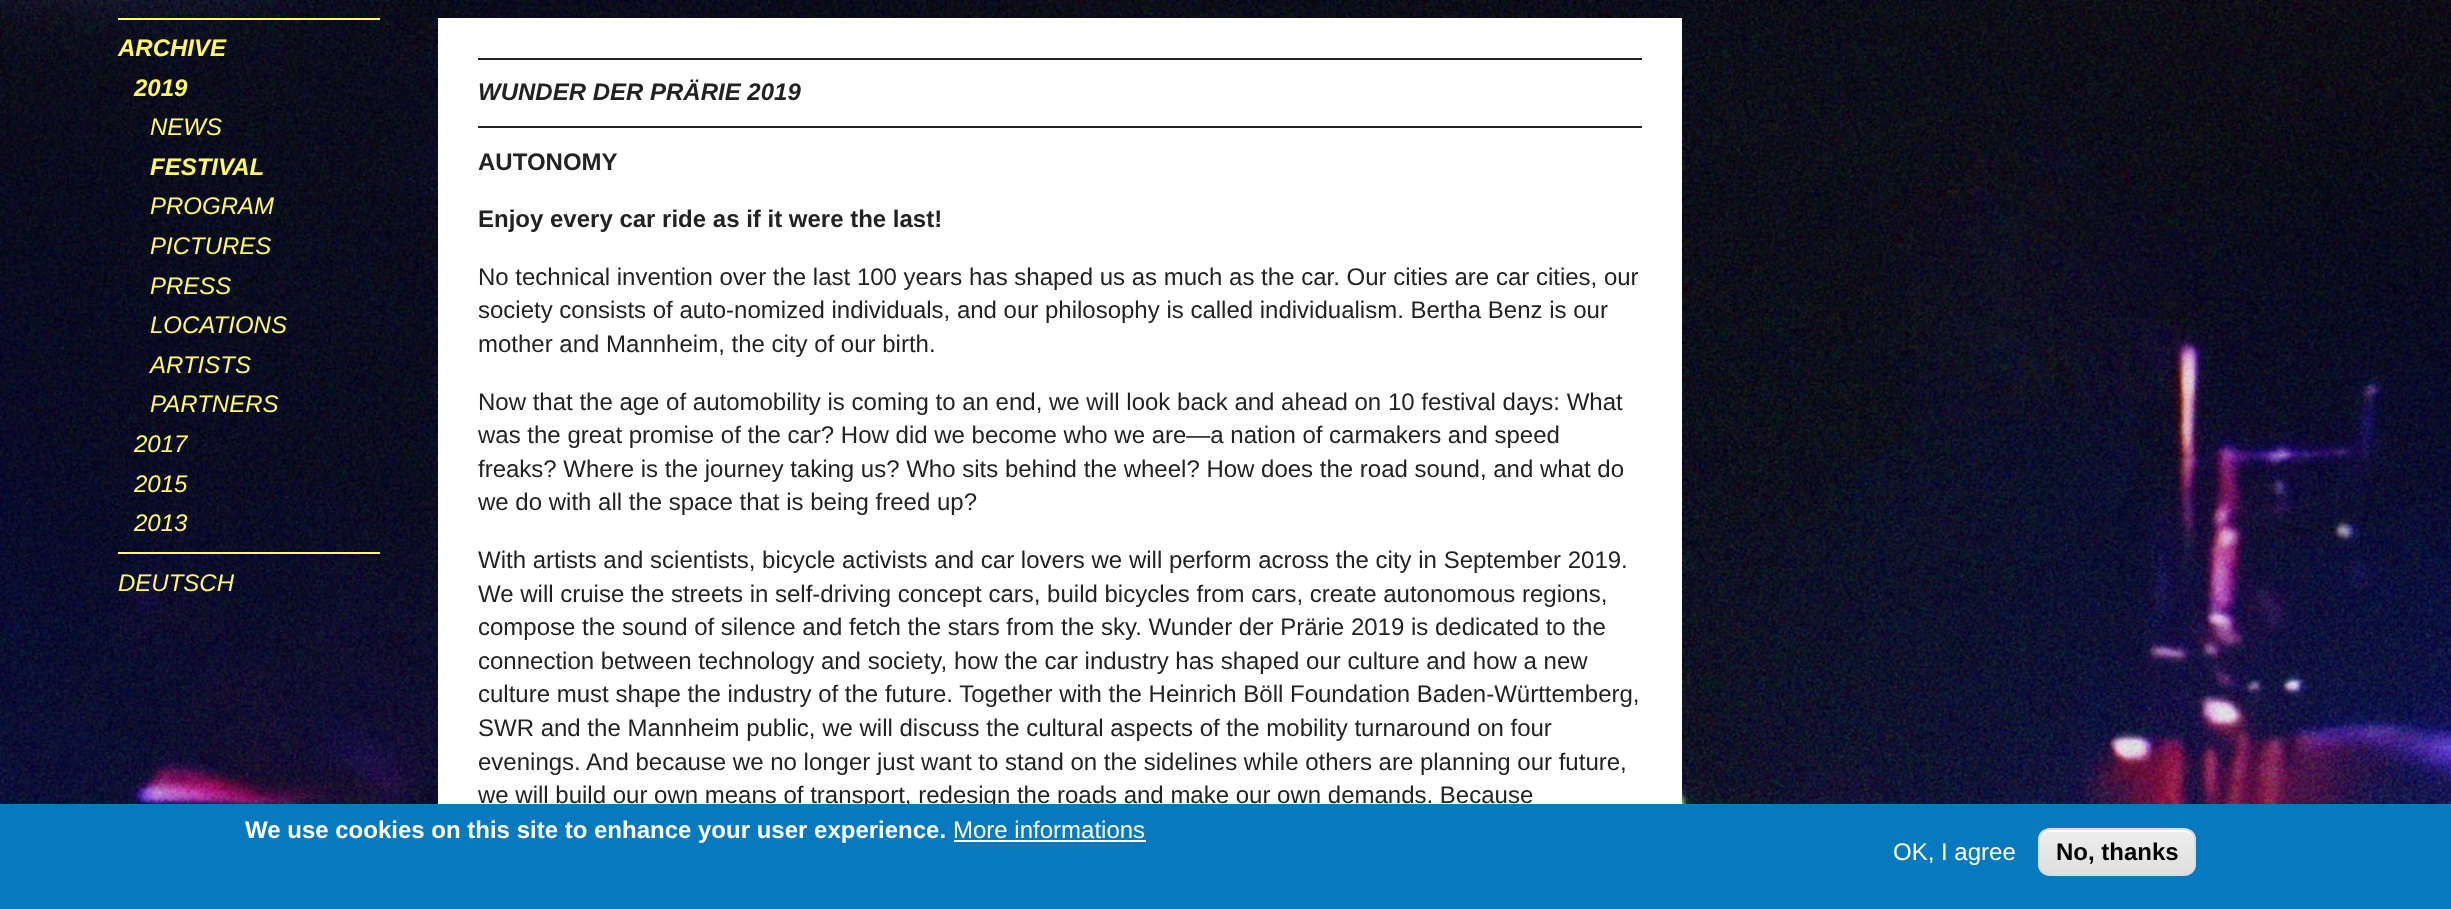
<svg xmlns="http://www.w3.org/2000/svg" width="2451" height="909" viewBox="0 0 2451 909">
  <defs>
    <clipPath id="clip1"><rect x="2038" y="828" width="158" height="48" rx="12"/></clipPath>
    <linearGradient id="g1" gradientUnits="userSpaceOnUse" x1="2117" y1="830" x2="2117" y2="874"><stop offset="0.05" stop-color="#ededed"/><stop offset="1" stop-color="#dfdfdf"/></linearGradient>
  </defs>
  <rect width="100%" height="100%" fill="#ffffff"/>
  <image x="0" y="0" width="2451" height="804" href="img1.png"/>
  <rect x="118" y="18" width="262" height="2" fill="#fff966"/>
  <text x="118" y="56" font-family="Liberation Sans" font-size="24" font-weight="bold" font-style="italic" fill="#fff966">ARCHIVE</text>
  <text x="134" y="96" font-family="Liberation Sans" font-size="24" font-weight="bold" font-style="italic" fill="#fff966">2019</text>
  <text x="150" y="135" font-family="Liberation Sans" font-size="24" font-style="italic" fill="#fff966">NEWS</text>
  <text x="150" y="175" font-family="Liberation Sans" font-size="24" font-weight="bold" font-style="italic" fill="#fff966">FESTIVAL</text>
  <text x="150" y="214" font-family="Liberation Sans" font-size="24" font-style="italic" fill="#fff966">PROGRAM</text>
  <text x="150" y="254" font-family="Liberation Sans" font-size="24" font-style="italic" fill="#fff966">PICTURES</text>
  <text x="150" y="294" font-family="Liberation Sans" font-size="24" font-style="italic" fill="#fff966">PRESS</text>
  <text x="150" y="333" font-family="Liberation Sans" font-size="24" font-style="italic" fill="#fff966">LOCATIONS</text>
  <text x="150" y="373" font-family="Liberation Sans" font-size="24" font-style="italic" fill="#fff966">ARTISTS</text>
  <text x="150" y="412" font-family="Liberation Sans" font-size="24" font-style="italic" fill="#fff966">PARTNERS</text>
  <text x="134" y="452" font-family="Liberation Sans" font-size="24" font-style="italic" fill="#fff966">2017</text>
  <text x="134" y="492" font-family="Liberation Sans" font-size="24" font-style="italic" fill="#fff966">2015</text>
  <text x="134" y="531" font-family="Liberation Sans" font-size="24" font-style="italic" fill="#fff966">2013</text>
  <rect x="118" y="552" width="262" height="2" fill="#fff966"/>
  <text x="118" y="591" font-family="Liberation Sans" font-size="24" font-style="italic" fill="#fff966">DEUTSCH</text>
  <rect x="438" y="18" width="1244" height="786" fill="#ffffff"/>
  <rect x="478" y="58" width="1164" height="2" fill="#222222"/>
  <rect x="478" y="126" width="1164" height="2" fill="#222222"/>
  <text x="478" y="100" font-family="Liberation Sans" font-size="24" font-weight="bold" font-style="italic" fill="#222222">WUNDER DER PRÄRIE 2019</text>
  <text x="478" y="170" font-family="Liberation Sans" font-size="24" font-weight="bold" fill="#222222">AUTONOMY</text>
  <text x="478" y="227" font-family="Liberation Sans" font-size="24" font-weight="bold" fill="#222222">Enjoy every car ride as if it were the last!</text>
  <text x="478" y="285" font-family="Liberation Sans" font-size="24" fill="#222222">No technical invention over the last 100 years has shaped us as much as the car. Our cities are car cities, our</text>
  <text x="478" y="318" font-family="Liberation Sans" font-size="24" fill="#222222">society consists of auto-nomized individuals, and our philosophy is called individualism. Bertha Benz is our</text>
  <text x="478" y="352" font-family="Liberation Sans" font-size="24" fill="#222222">mother and Mannheim, the city of our birth.</text>
  <text x="478" y="410" font-family="Liberation Sans" font-size="24" fill="#222222">Now that the age of automobility is coming to an end, we will look back and ahead on 10 festival days: What</text>
  <text x="478" y="443" font-family="Liberation Sans" font-size="24" fill="#222222">was the great promise of the car? How did we become who we are—a nation of carmakers and speed</text>
  <text x="478" y="477" font-family="Liberation Sans" font-size="24" fill="#222222">freaks? Where is the journey taking us? Who sits behind the wheel? How does the road sound, and what do</text>
  <text x="478" y="510" font-family="Liberation Sans" font-size="24" fill="#222222">we do with all the space that is being freed up?</text>
  <text x="478" y="568" font-family="Liberation Sans" font-size="24" fill="#222222">With artists and scientists, bicycle activists and car lovers we will perform across the city in September 2019.</text>
  <text x="478" y="602" font-family="Liberation Sans" font-size="24" fill="#222222">We will cruise the streets in self-driving concept cars, build bicycles from cars, create autonomous regions,</text>
  <text x="478" y="635" font-family="Liberation Sans" font-size="24" fill="#222222">compose the sound of silence and fetch the stars from the sky. Wunder der Prärie 2019 is dedicated to the</text>
  <text x="478" y="669" font-family="Liberation Sans" font-size="24" fill="#222222">connection between technology and society, how the car industry has shaped our culture and how a new</text>
  <text x="478" y="702" font-family="Liberation Sans" font-size="24" fill="#222222">culture must shape the industry of the future. Together with the Heinrich Böll Foundation Baden-Württemberg,</text>
  <text x="478" y="736" font-family="Liberation Sans" font-size="24" fill="#222222">SWR and the Mannheim public, we will discuss the cultural aspects of the mobility turnaround on four</text>
  <text x="478" y="770" font-family="Liberation Sans" font-size="24" fill="#222222">evenings. And because we no longer just want to stand on the sidelines while others are planning our future,</text>
  <text x="478" y="803" font-family="Liberation Sans" font-size="24" fill="#222222">we will build our own means of transport, redesign the roads and make our own demands. Because</text>
  <rect x="0" y="804" width="2451" height="105" fill="#0779bf"/>
  <text x="245" y="838" font-family="Liberation Sans" font-size="24" font-weight="bold" fill="#ffffff">We use cookies on this site to enhance your user experience.</text>
  <text x="953" y="838" font-family="Liberation Sans" font-size="24" fill="#ffffff">More informations</text>
  <rect x="954" y="840" width="192" height="2" fill="#ffffff"/>
  <text x="1893" y="860" font-family="Liberation Sans" font-size="24" fill="#ffffff">OK, I agree</text>
  <g clip-path="url(#clip1)">
    <rect x="2038" y="830" width="158" height="44" fill="url(#g1)"/>
  </g>
  <path d="M2050 832H2184C2190 832 2194 836 2194 842C2194 824 2174 830 2162 830H2072C2060 830 2040 824 2040 842C2040 836 2044 832 2050 832Z" fill="#ffffff"/>
  <rect x="2039" y="829" width="156" height="46" rx="11" fill="none" stroke="#dcdcdc" stroke-width="2"/>
  <text x="2056" y="860" font-family="Liberation Sans" font-size="24" font-weight="bold" fill="#000000">No, thanks</text>
</svg>
